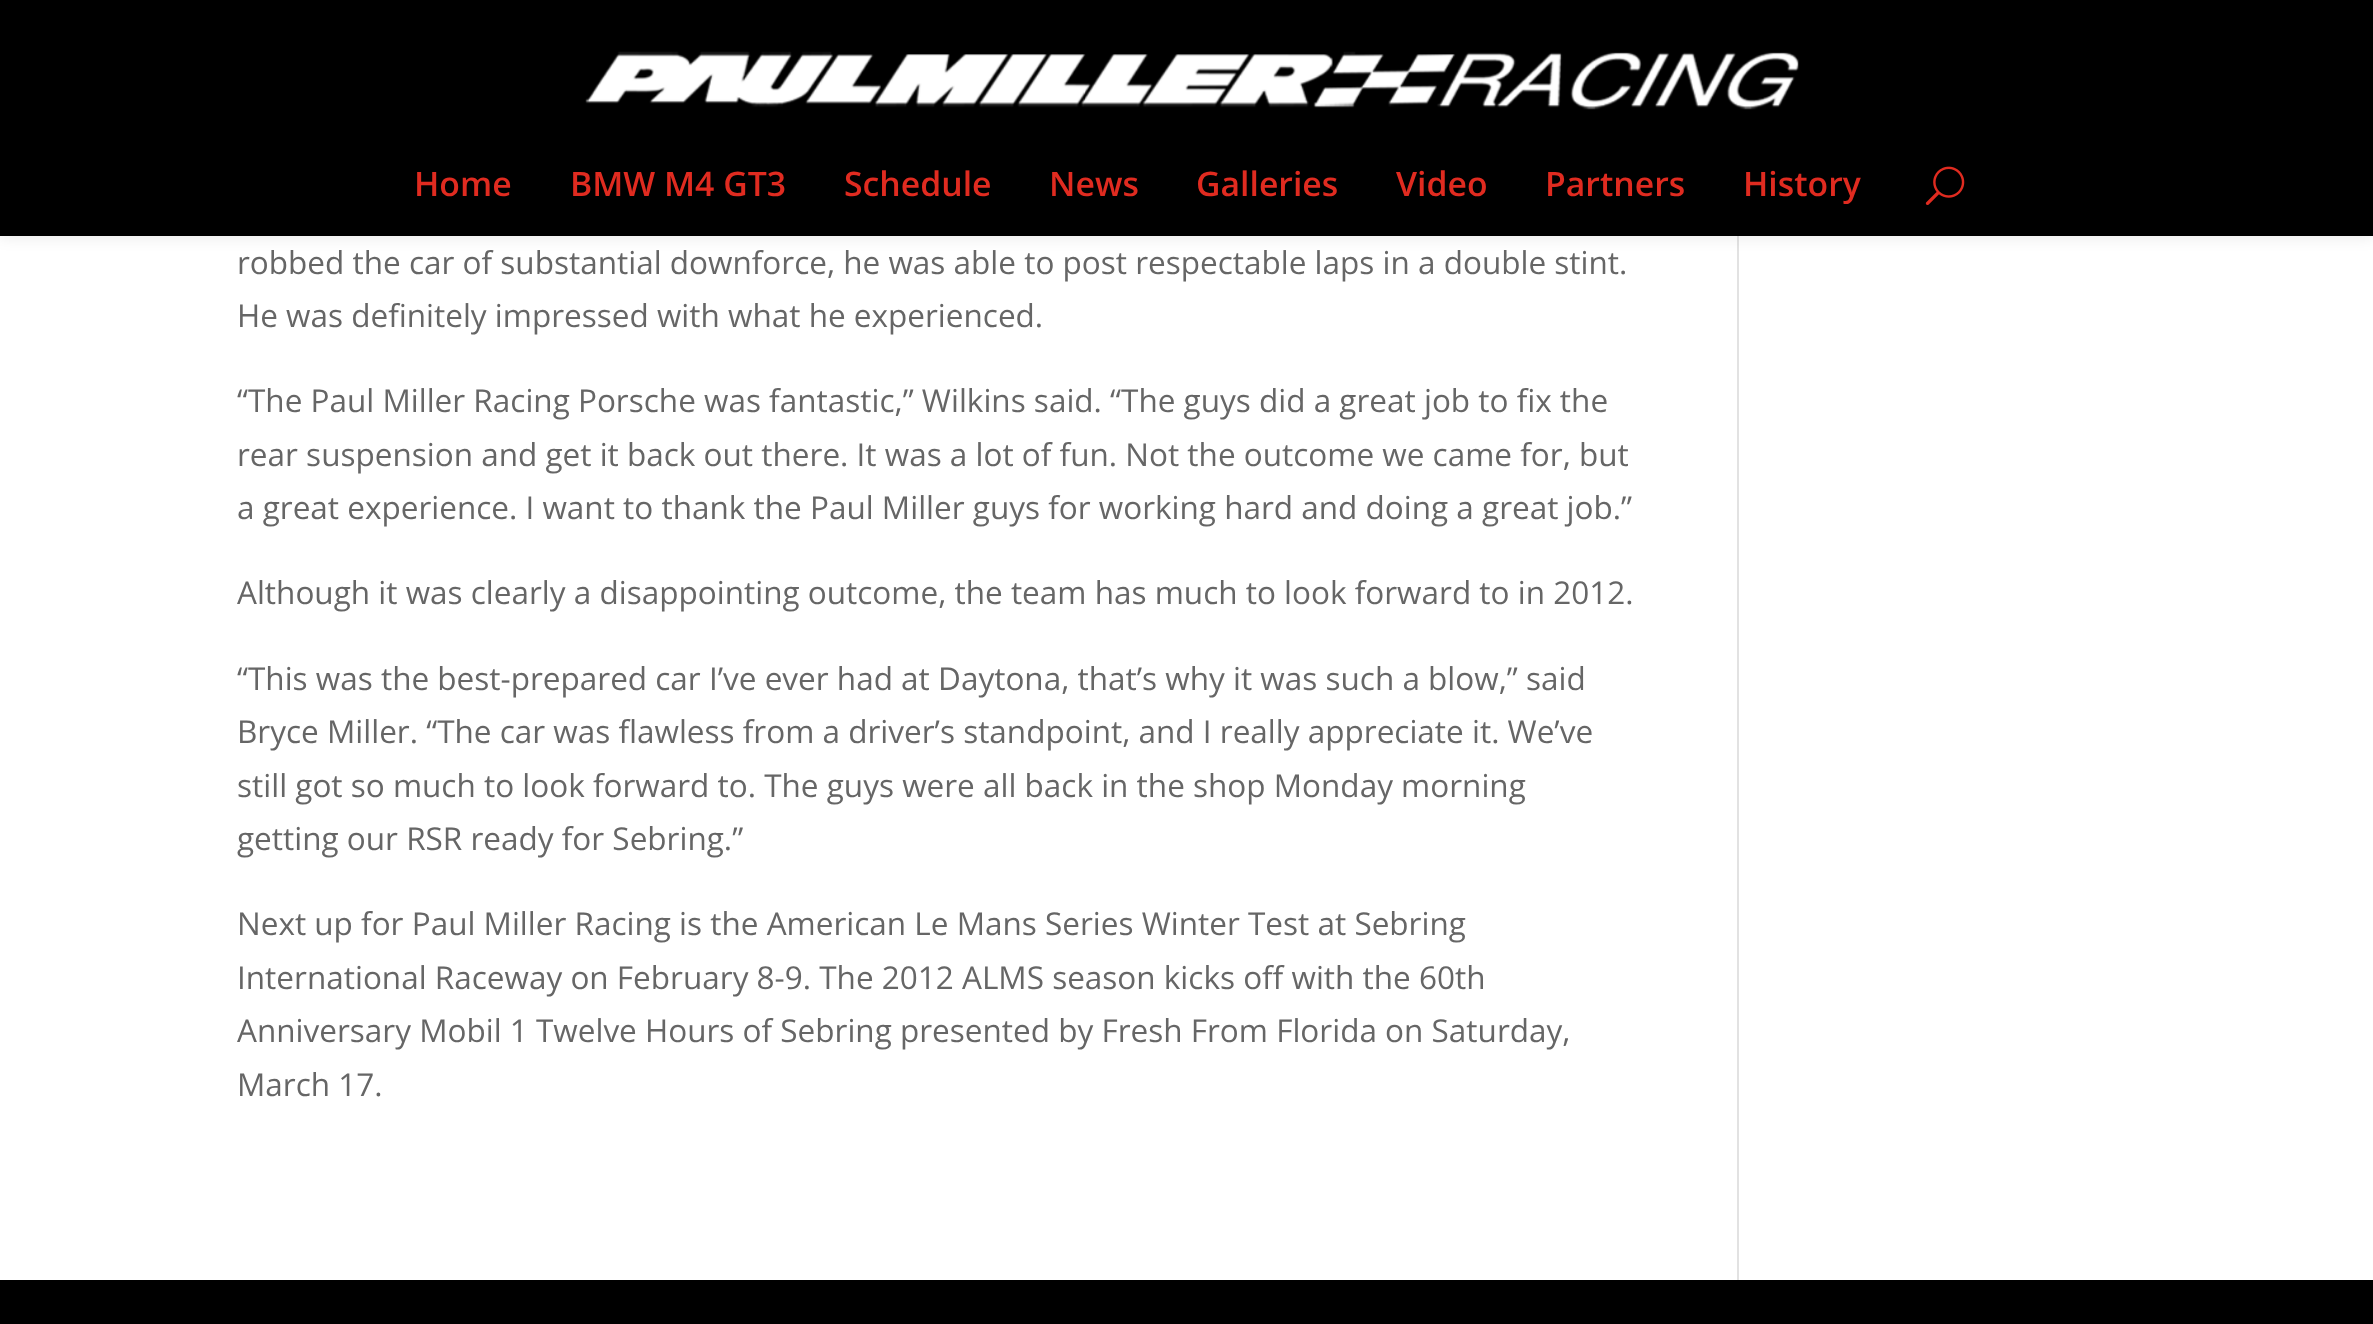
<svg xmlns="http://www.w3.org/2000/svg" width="2373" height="1324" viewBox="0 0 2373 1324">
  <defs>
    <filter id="blur1" x="-50%" y="-200%" width="200%" height="500%"><feGaussianBlur stdDeviation="8"/></filter>
  </defs>
  <rect width="100%" height="100%" fill="#ffffff"/>
  <rect x="1737" y="236" width="2" height="1044" fill="#e2e2e2"/>
  <rect x="0" y="0" width="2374" height="236" fill="#000000" fill-opacity="0.1" filter="url(#blur1)"/>
  <rect x="0" y="0" width="2373" height="236" fill="#000000"/>
  <image x="585" y="51" width="1214" height="59" href="img1.png"/>
  <text x="414" y="196" font-family="Open Sans" font-size="33.75" font-weight="600" fill="#e02b20">Home</text>
  <text x="570" y="196" font-family="Open Sans" font-size="33.75" font-weight="600" fill="#e02b20">BMW M4 GT3</text>
  <text x="844" y="196" font-family="Open Sans" font-size="33.75" font-weight="600" fill="#e02b20">Schedule</text>
  <text x="1049" y="196" font-family="Open Sans" font-size="33.75" font-weight="600" fill="#e02b20">News</text>
  <text x="1196" y="196" font-family="Open Sans" font-size="33.75" font-weight="600" fill="#e02b20">Galleries</text>
  <text x="1396" y="196" font-family="Open Sans" font-size="33.75" font-weight="600" fill="#e02b20">Video</text>
  <text x="1545" y="196" font-family="Open Sans" font-size="33.75" font-weight="600" fill="#e02b20">Partners</text>
  <text x="1743" y="196" font-family="Open Sans" font-size="33.75" font-weight="600" fill="#e02b20">History</text>
  <image x="1925" y="166" width="40" height="39" href="img2.png"/>
  <text x="237" y="274" font-family="Open Sans" font-size="31.5" fill="#666666">robbed the car of substantial downforce, he was able to post respectable laps in a double stint.</text>
  <text x="237" y="327" font-family="Open Sans" font-size="31.5" fill="#666666">He was definitely impressed with what he experienced.</text>
  <text x="237" y="412" font-family="Open Sans" font-size="31.5" fill="#666666">“The Paul Miller Racing Porsche was fantastic,” Wilkins said. “The guys did a great job to fix the</text>
  <text x="237" y="466" font-family="Open Sans" font-size="31.5" fill="#666666">rear suspension and get it back out there. It was a lot of fun. Not the outcome we came for, but</text>
  <text x="237" y="519" font-family="Open Sans" font-size="31.5" fill="#666666">a great experience. I want to thank the Paul Miller guys for working hard and doing a great job.”</text>
  <text x="237" y="604" font-family="Open Sans" font-size="31.5" fill="#666666">Although it was clearly a disappointing outcome, the team has much to look forward to in 2012.</text>
  <text x="237" y="690" font-family="Open Sans" font-size="31.5" fill="#666666">“This was the best-prepared car I’ve ever had at Daytona, that’s why it was such a blow,” said</text>
  <text x="237" y="743" font-family="Open Sans" font-size="31.5" fill="#666666">Bryce Miller. “The car was flawless from a driver’s standpoint, and I really appreciate it. We’ve</text>
  <text x="237" y="797" font-family="Open Sans" font-size="31.5" fill="#666666">still got so much to look forward to. The guys were all back in the shop Monday morning</text>
  <text x="237" y="850" font-family="Open Sans" font-size="31.5" fill="#666666">getting our RSR ready for Sebring.”</text>
  <text x="237" y="935" font-family="Open Sans" font-size="31.5" fill="#666666">Next up for Paul Miller Racing is the American Le Mans Series Winter Test at Sebring</text>
  <text x="237" y="989" font-family="Open Sans" font-size="31.5" fill="#666666">International Raceway on February 8-9. The 2012 ALMS season kicks off with the 60th</text>
  <text x="237" y="1042" font-family="Open Sans" font-size="31.5" fill="#666666">Anniversary Mobil 1 Twelve Hours of Sebring presented by Fresh From Florida on Saturday,</text>
  <text x="237" y="1096" font-family="Open Sans" font-size="31.5" fill="#666666">March 17.</text>
  <rect x="0" y="1280" width="2373" height="44" fill="#000000"/>
</svg>
